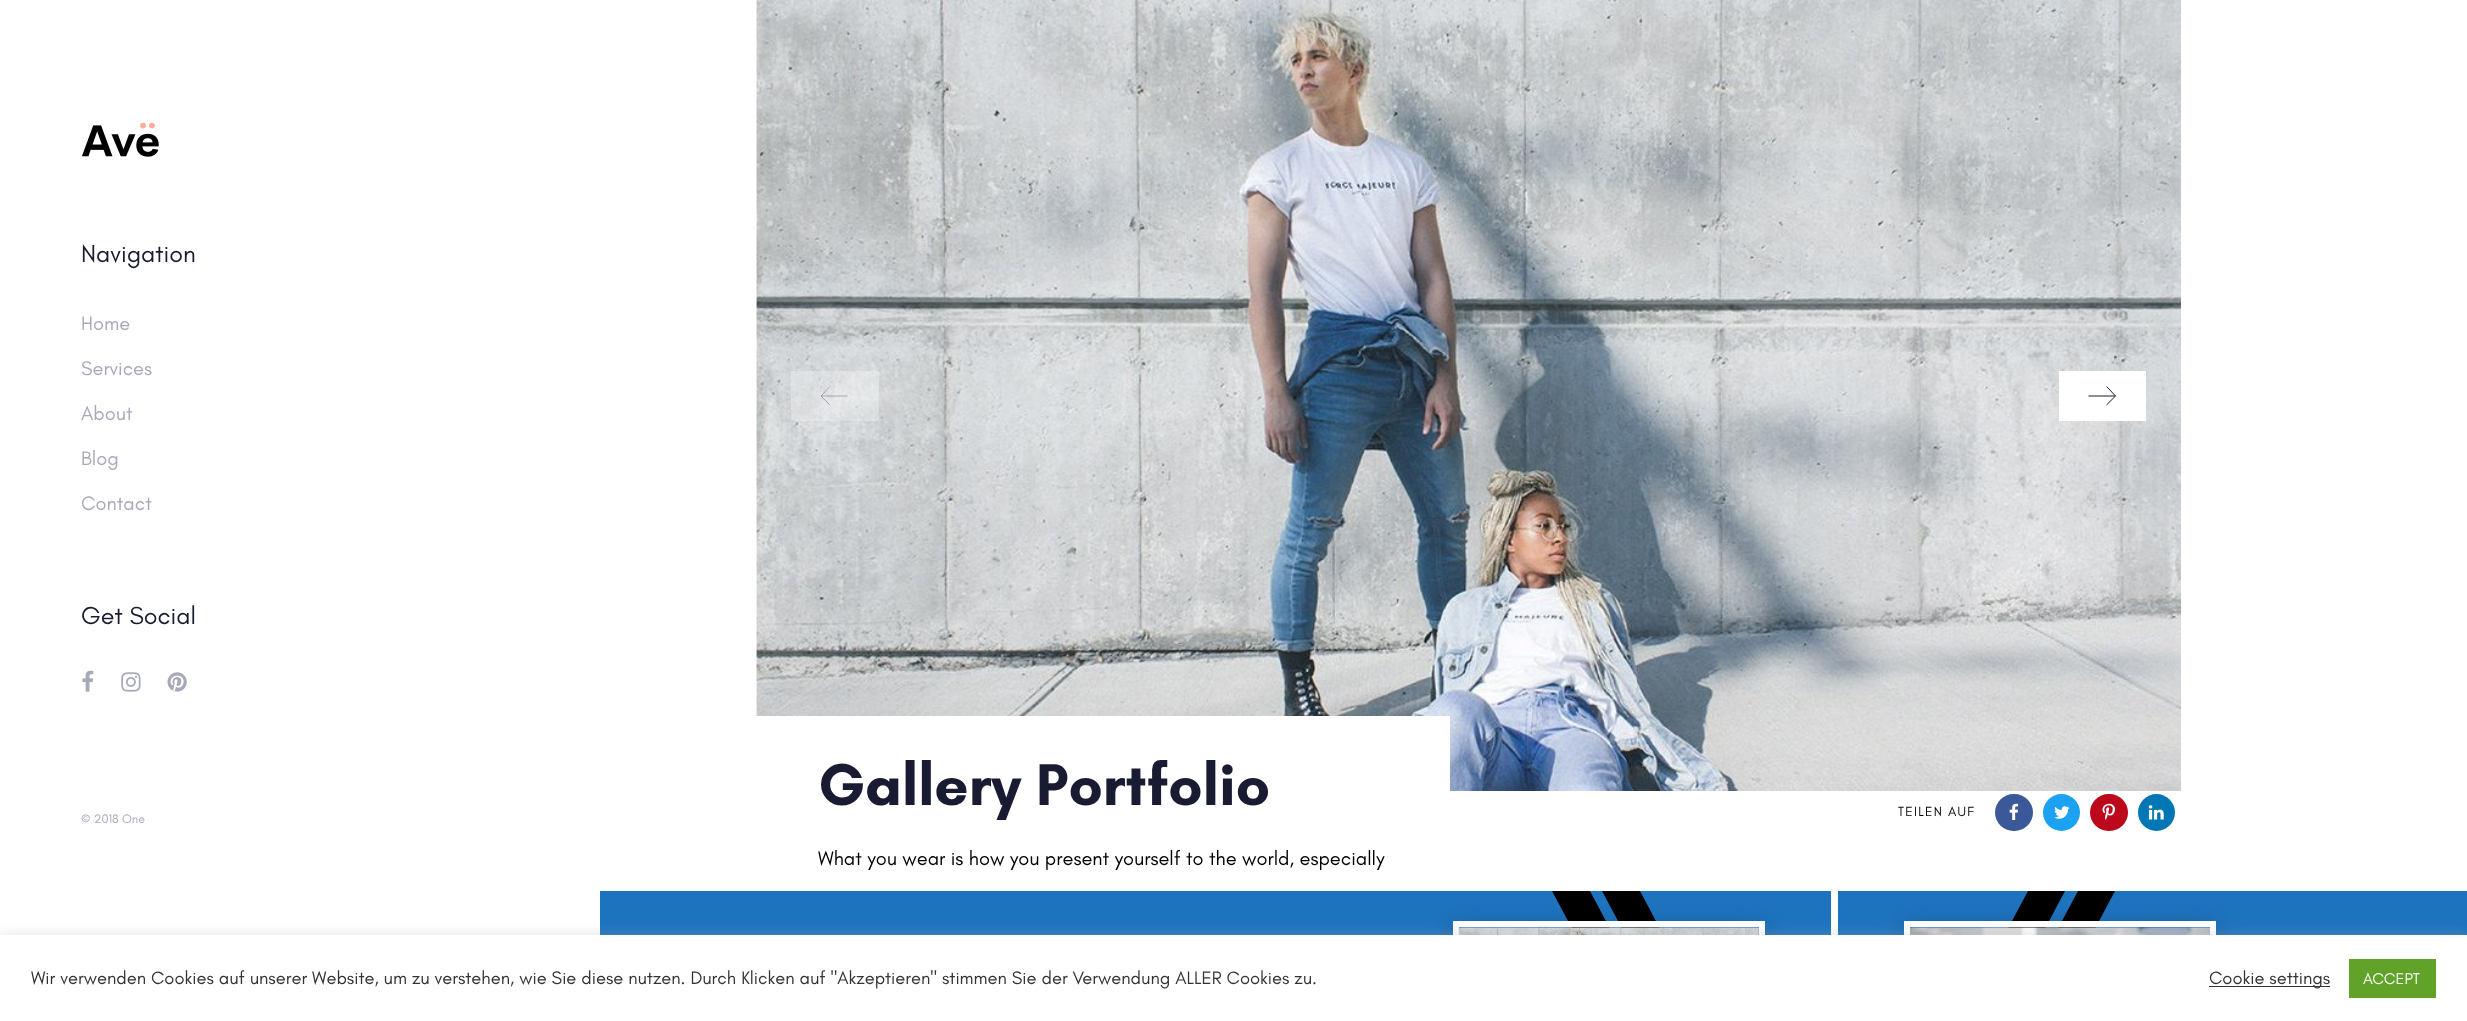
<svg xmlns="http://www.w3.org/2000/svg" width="2467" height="1021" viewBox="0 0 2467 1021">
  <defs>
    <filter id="blur1" x="-50%" y="-200%" width="200%" height="500%"><feGaussianBlur stdDeviation="12.5"/></filter>
    <filter id="blur2" x="-50%" y="-200%" width="200%" height="500%"><feGaussianBlur stdDeviation="6"/></filter>
  </defs>
  <rect width="100%" height="100%" fill="#ffffff"/>
  <image x="82" y="123" width="77" height="34" href="img1.png"/>
  <text x="81" y="262" font-family="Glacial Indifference" font-size="25" fill="#181b31">Navigation</text>
  <text x="81" y="330" font-family="Glacial Indifference" font-size="20" fill="#a7a9b8">Home</text>
  <text x="81" y="375" font-family="Glacial Indifference" font-size="20" fill="#a7a9b8">Services</text>
  <text x="81" y="420" font-family="Glacial Indifference" font-size="20" fill="#a7a9b8">About</text>
  <text x="81" y="465" font-family="Glacial Indifference" font-size="20" fill="#a7a9b8">Blog</text>
  <text x="81" y="510" font-family="Glacial Indifference" font-size="20" fill="#a7a9b8">Contact</text>
  <text x="81" y="624" font-family="Glacial Indifference" font-size="25" fill="#181b31">Get Social</text>
  <image x="82" y="670" width="12" height="22" href="img2.png"/>
  <image x="121" y="672" width="20" height="20" href="img3.png"/>
  <image x="167" y="672" width="20" height="20" href="img4.png"/>
  <text x="81" y="823" font-family="Glacial Indifference" font-size="12.5" fill="#a7a9b8">© 2018 One</text>
  <image x="756" y="0" width="1425" height="791" href="img5.png"/>
  <rect x="791" y="371" width="88" height="50" fill="#ffffff" fill-opacity="0.3"/>
  <path d="M847.5 396H821" fill="none" stroke="#181b30" stroke-opacity="0.3"/>
  <path d="M829.5 404.5L821 396L829.5 387" fill="none" stroke="#181b30" stroke-opacity="0.3" stroke-linecap="square"/>
  <rect x="2059" y="371" width="87" height="50" fill="#ffffff"/>
  <path d="M2088.5 396H2115.5" fill="none" stroke="#181b30"/>
  <path d="M2107 387L2115.5 396L2107 404.5" fill="none" stroke="#181b30" stroke-linecap="square"/>
  <rect x="756" y="716" width="694" height="75" fill="#ffffff"/>
  <text x="818" y="805" font-family="Glacial Indifference" font-size="60" font-weight="bold" fill="#181b31">Gallery Portfolio</text>
  <text x="818" y="865" font-family="Glacial Indifference" font-size="20" fill="#000000">What you wear is how you present yourself to the world, especially</text>
  <text x="1898" y="816" font-family="Glacial Indifference" font-size="13.5" letter-spacing="1.25" fill="#000000">TEILEN AUF</text>
  <rect x="1995" y="794" width="38" height="37" rx="18.5" fill="#3b5998"/>
  <image x="2009" y="803" width="10" height="17" href="img6.png"/>
  <circle cx="2061.5" cy="812.5" r="18.5" fill="#1da1f2"/>
  <image x="2054" y="806" width="16" height="13" href="img7.png"/>
  <rect x="2090" y="794" width="38" height="37" rx="18.5" fill="#bd081c"/>
  <image x="2102" y="803" width="13" height="17" href="img8.png"/>
  <circle cx="2156.5" cy="812.5" r="18.5" fill="#0077b5"/>
  <image x="2148" y="805" width="16" height="15" href="img9.png"/>
  <rect x="600" y="891" width="1867" height="44" fill="#1e73be"/>
  <path d="M1552 891H1590L1728 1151H1691Z" fill="#000000"/>
  <path d="M1602 891H1640L1778 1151H1741Z" fill="#000000"/>
  <rect x="1453" y="926" width="312" height="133" fill="#000000" fill-opacity="0.2" filter="url(#blur1)"/>
  <rect x="1456" y="924" width="306" height="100" fill="none" stroke="#ffffff" stroke-width="6"/>
  <image x="1458" y="927" width="301" height="8" href="img10.png"/>
  <path d="M2078 891H2115L1977 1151H1939Z" fill="#000000"/>
  <path d="M2028 891H2065L1927 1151H1889Z" fill="#000000"/>
  <rect x="1904" y="926" width="312" height="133" fill="#000000" fill-opacity="0.2" filter="url(#blur1)"/>
  <rect x="1907" y="924" width="306" height="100" fill="none" stroke="#ffffff" stroke-width="6"/>
  <image x="1910" y="927" width="300" height="8" href="img11.png"/>
  <rect x="1831" y="891" width="7" height="44" fill="#ffffff"/>
  <rect x="0" y="934" width="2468" height="86" fill="#acabab" fill-opacity="0.3" filter="url(#blur2)"/>
  <rect x="0" y="935" width="2467" height="86" fill="#ffffff"/>
  <text x="31" y="984" font-family="Glacial Indifference" font-size="18.33" fill="#333333">Wir verwenden Cookies auf unserer Website, um zu verstehen, wie Sie diese nutzen. Durch Klicken auf "Akzeptieren" stimmen Sie der Verwendung ALLER Cookies zu.</text>
  <rect x="2209" y="986" width="121" height="1" fill="#333333"/>
  <text x="2209" y="984" font-family="Glacial Indifference" font-size="18.33" fill="#333333">Cookie settings</text>
  <rect x="2349" y="959" width="87" height="39" fill="#61a229"/>
  <text x="2363" y="984" font-family="Glacial Indifference" font-size="16" fill="#ffffff">ACCEPT</text>
</svg>
